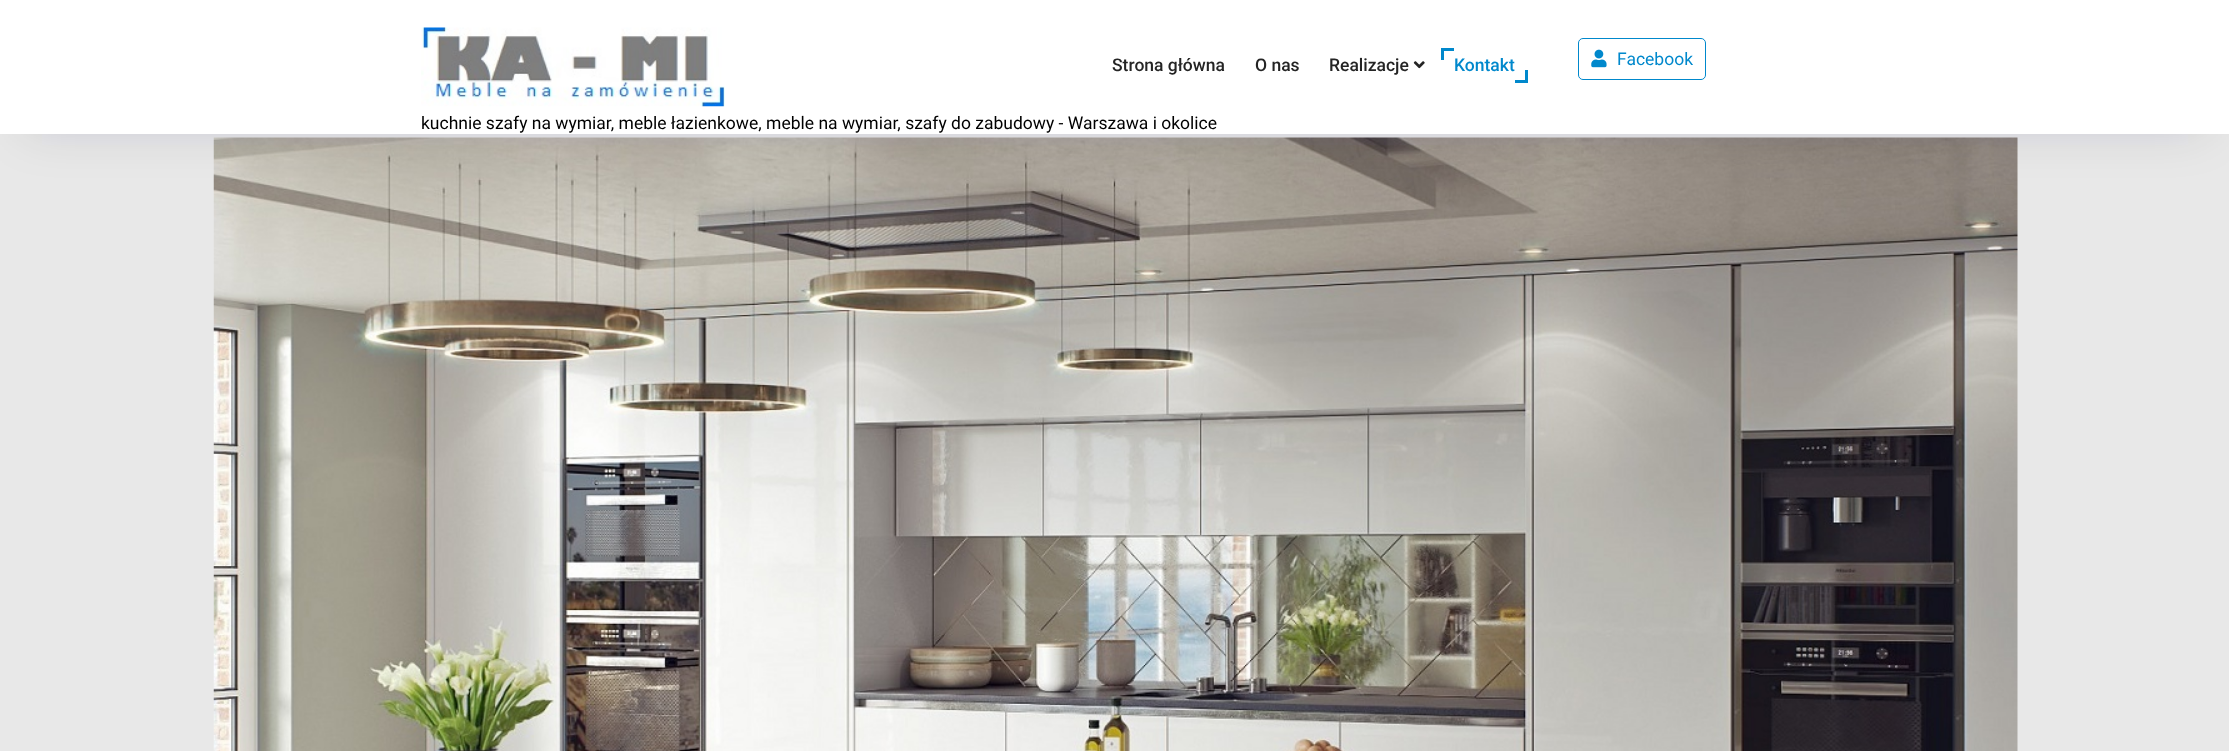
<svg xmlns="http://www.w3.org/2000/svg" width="2229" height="751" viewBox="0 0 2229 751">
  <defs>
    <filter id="blur1" x="-50%" y="-200%" width="200%" height="500%"><feGaussianBlur stdDeviation="25"/></filter>
  </defs>
  <rect width="100%" height="100%" fill="#e8e8e8"/>
  <image x="213" y="137" width="1805" height="614" href="img4.png"/>
  <rect x="25" y="44" width="2180" height="84" fill="#282c3f" fill-opacity="0.15" filter="url(#blur1)"/>
  <rect x="0" y="0" width="2229" height="134" fill="#ffffff"/>
  <text x="1112" y="71" font-family="Roboto" font-size="17.5" font-weight="500" fill="#242424">Strona główna</text>
  <text x="1255" y="71" font-family="Roboto" font-size="17.5" font-weight="500" fill="#242424">O nas</text>
  <text x="1329" y="71" font-family="Roboto" font-size="17.5" font-weight="500" fill="#242424">Realizacje</text>
  <image x="1413" y="61" width="12" height="8" href="img1.png"/>
  <rect x="1441" y="48" width="13" height="3" fill="#0088cc"/>
  <rect x="1441" y="48" width="3" height="12" fill="#0088cc"/>
  <text x="1454" y="71" font-family="Roboto" font-size="17.5" font-weight="500" fill="#0088cc">Kontakt</text>
  <rect x="1525" y="70" width="3" height="13" fill="#0088cc"/>
  <rect x="1515" y="80" width="13" height="3" fill="#0088cc"/>
  <rect x="1578.5" y="38.5" width="127" height="41" rx="4.5" fill="none" stroke="#0088cc"/>
  <image x="1591" y="49" width="16" height="19" href="img2.png"/>
  <text x="1617" y="65" font-family="Roboto" font-size="17.5" fill="#0088cc">Facebook</text>
  <image x="421" y="27" width="304" height="80" href="img3.png"/>
  <text x="421" y="129" font-family="Roboto" font-size="17.5" fill="#000000">kuchnie szafy na wymiar, meble łazienkowe, meble na wymiar, szafy do zabudowy - Warszawa i okolice</text>
</svg>
